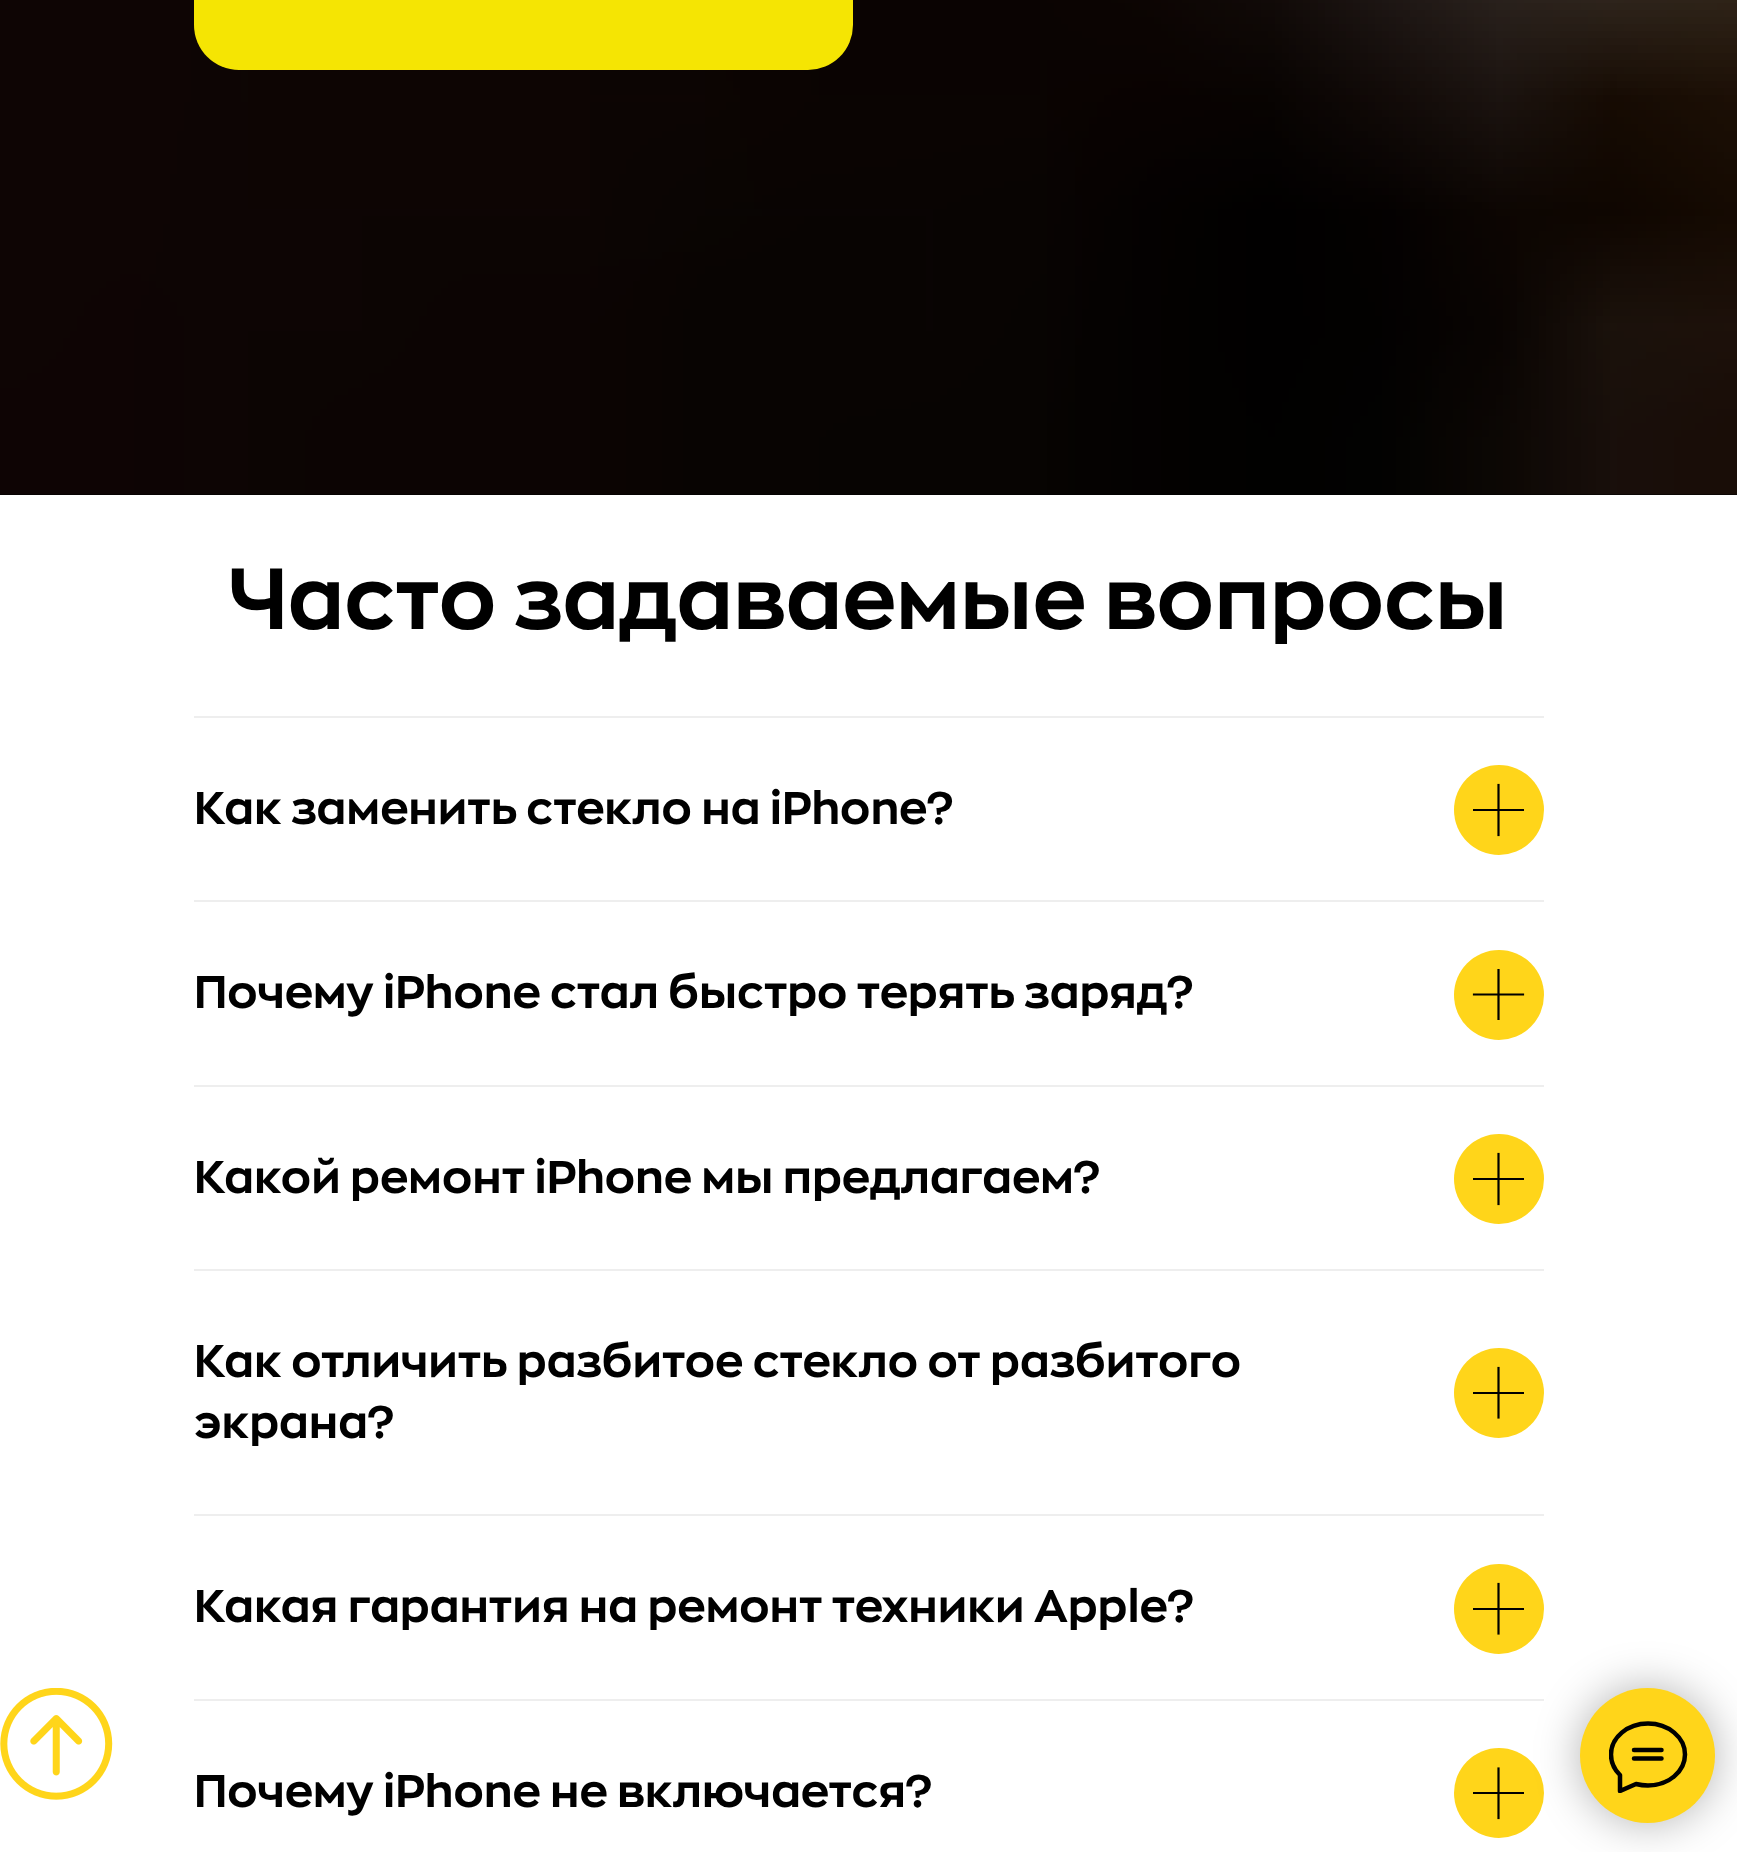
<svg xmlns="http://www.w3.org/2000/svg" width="1737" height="1852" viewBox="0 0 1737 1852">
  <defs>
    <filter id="blur1" x="-50%" y="-200%" width="200%" height="500%"><feGaussianBlur stdDeviation="22.5"/></filter>
    <clipPath id="clip1"><rect x="1609" y="1721" width="79" height="72"/></clipPath>
  </defs>
  <rect width="100%" height="100%" fill="#ffffff"/>
  <rect x="0" y="494" width="1737" height="1" fill="#000000"/>
  <image x="0" y="0" width="1737" height="495" href="img1.png"/>
  <rect x="194" y="-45" width="659" height="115" rx="45" fill="#f5e503"/>
  <text x="229" y="629" font-family="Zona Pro" font-size="85.5" font-weight="bold" fill="#000000">Часто задаваемые вопросы</text>
  <rect x="194" y="716" width="1350" height="2" fill="#eeeeee"/>
  <text x="194" y="824" font-family="Zona Pro" font-size="45" font-weight="bold" fill="#000000">Как заменить стекло на iPhone?</text>
  <circle cx="1499" cy="810" r="45" fill="#ffd51a"/>
  <rect x="1473" y="809" width="51" height="2" fill="#000000"/>
  <path d="M1498.5 785V835" fill="none" stroke="#000000" stroke-width="2.2" stroke-linecap="square"/>
  <rect x="194" y="900" width="1350" height="2" fill="#eeeeee"/>
  <text x="194" y="1008" font-family="Zona Pro" font-size="45" font-weight="bold" fill="#000000">Почему iPhone стал быстро терять заряд?</text>
  <circle cx="1499" cy="995" r="45" fill="#ffd51a"/>
  <path d="M1474 994.5H1523M1498.5 970V1019" fill="none" stroke="#000000" stroke-width="2.2" stroke-linecap="square"/>
  <rect x="194" y="1085" width="1350" height="2" fill="#eeeeee"/>
  <text x="194" y="1193" font-family="Zona Pro" font-size="45" font-weight="bold" fill="#000000">Какой ремонт iPhone мы предлагаем?</text>
  <circle cx="1499" cy="1179" r="45" fill="#ffd51a"/>
  <rect x="1473" y="1178" width="51" height="2" fill="#000000"/>
  <path d="M1498.5 1154V1204" fill="none" stroke="#000000" stroke-width="2.2" stroke-linecap="square"/>
  <rect x="194" y="1269" width="1350" height="2" fill="#eeeeee"/>
  <text x="194" y="1377" font-family="Zona Pro" font-size="45" font-weight="bold" fill="#000000">Как отличить разбитое стекло от разбитого</text>
  <text x="194" y="1438" font-family="Zona Pro" font-size="45" font-weight="bold" fill="#000000">экрана?</text>
  <circle cx="1499" cy="1393" r="45" fill="#ffd51a"/>
  <rect x="1473" y="1392" width="51" height="2" fill="#000000"/>
  <path d="M1498.5 1368V1417.5" fill="none" stroke="#000000" stroke-width="2.2" stroke-linecap="square"/>
  <rect x="194" y="1514" width="1350" height="2" fill="#eeeeee"/>
  <text x="194" y="1622" font-family="Zona Pro" font-size="45" font-weight="bold" fill="#000000">Какая гарантия на ремонт техники Apple?</text>
  <circle cx="1499" cy="1609" r="45" fill="#ffd51a"/>
  <rect x="1473" y="1608" width="51" height="2" fill="#000000"/>
  <path d="M1498.5 1584V1633.5" fill="none" stroke="#000000" stroke-width="2.2" stroke-linecap="square"/>
  <rect x="194" y="1699" width="1350" height="2" fill="#eeeeee"/>
  <text x="194" y="1807" font-family="Zona Pro" font-size="45" font-weight="bold" fill="#000000">Почему iPhone не включается?</text>
  <circle cx="1499" cy="1793" r="45" fill="#ffd51a"/>
  <rect x="1473" y="1792" width="51" height="2" fill="#000000"/>
  <path d="M1498.5 1768.5V1818" fill="none" stroke="#000000" stroke-width="2.2" stroke-linecap="square"/>
  <image x="0" y="1688" width="113" height="112" href="img2.png"/>
  <rect x="1580" y="1688" width="135" height="135" rx="67.5" fill="#000000" fill-opacity="0.3" filter="url(#blur1)"/>
  <circle cx="1647.5" cy="1755.5" r="67.5" fill="#ffd51a"/>
  <g clip-path="url(#clip1)">
    <path d="M1634 1750H1661.5M1634 1758.5H1661.5M1619.5 1774.5C1614 1769 1611 1762 1611 1754.5C1611 1737.5 1627.5 1723.5 1648 1723.5C1668.5 1723.5 1685 1737.5 1685 1754.5C1685 1771.5 1668.5 1785.5 1648 1785.5C1644 1785.5 1640 1785 1636 1784L1620 1791V1775Z" fill="none" stroke="#000000" stroke-width="4.5" stroke-linecap="round" stroke-linejoin="round"/>
  </g>
</svg>
